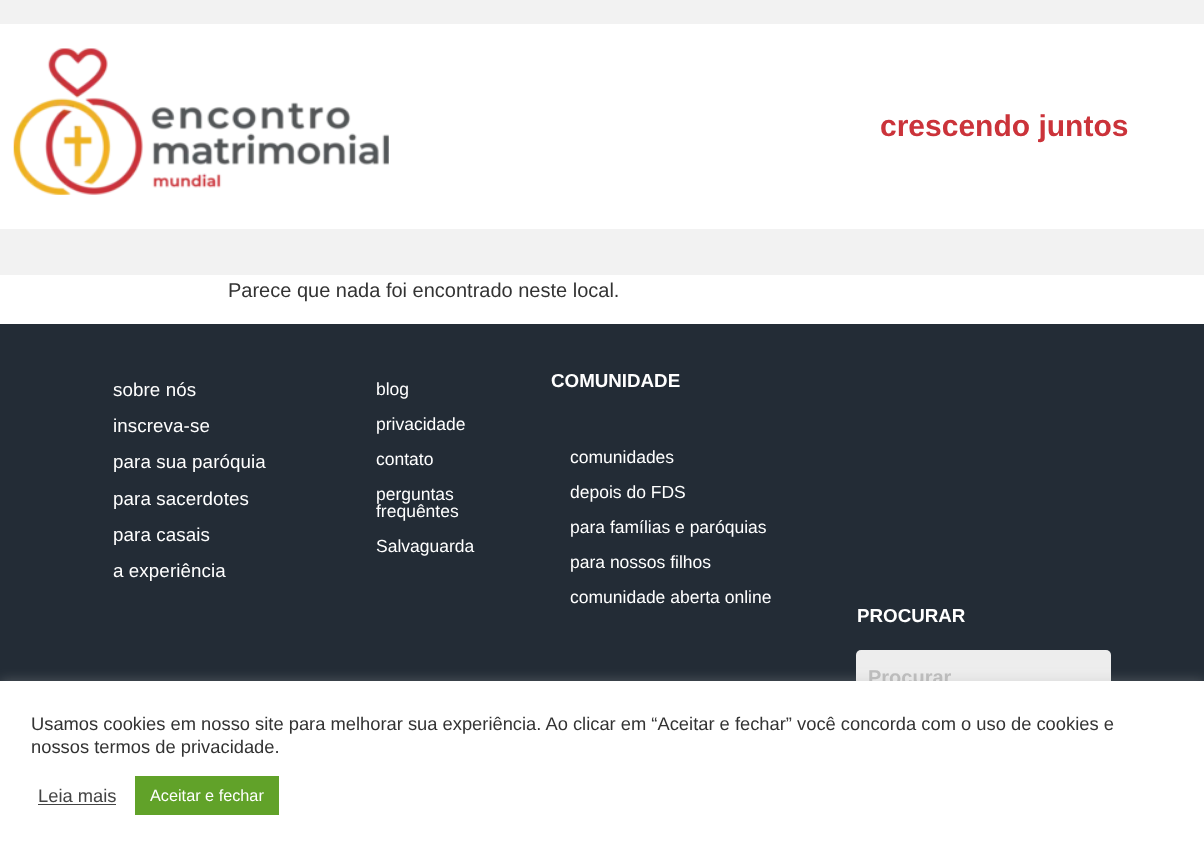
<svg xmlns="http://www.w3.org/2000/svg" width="1204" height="852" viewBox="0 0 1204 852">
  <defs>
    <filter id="blur1" x="-50%" y="-200%" width="200%" height="500%"><feGaussianBlur stdDeviation="6"/></filter>
  </defs>
  <rect width="100%" height="100%" fill="#ffffff"/>
  <rect x="0" y="0" width="1204" height="24" fill="#f2f2f2"/>
  <image x="13" y="48" width="376" height="147" href="img1.png"/>
  <text x="880" y="136" font-family="Liberation Sans" font-size="30" font-weight="bold" fill="#cb333a">crescendo juntos</text>
  <rect x="0" y="229" width="1204" height="46" fill="#f2f2f2"/>
  <text x="228" y="297" font-family="Liberation Sans" font-size="20" fill="#333333">Parece que nada foi encontrado neste local.</text>
  <rect x="0" y="324" width="1204" height="357" fill="#232c36"/>
  <text x="113" y="396" font-family="Liberation Sans" font-size="18.75" letter-spacing="0.1" fill="#ffffff">sobre nós</text>
  <text x="113" y="432" font-family="Liberation Sans" font-size="18.75" letter-spacing="0.1" fill="#ffffff">inscreva-se</text>
  <text x="113" y="468" font-family="Liberation Sans" font-size="18.75" letter-spacing="0.1" fill="#ffffff">para sua paróquia</text>
  <text x="113" y="505" font-family="Liberation Sans" font-size="18.75" letter-spacing="0.1" fill="#ffffff">para sacerdotes</text>
  <text x="113" y="541" font-family="Liberation Sans" font-size="18.75" letter-spacing="0.1" fill="#ffffff">para casais</text>
  <text x="113" y="577" font-family="Liberation Sans" font-size="18.75" letter-spacing="0.1" fill="#ffffff">a experiência</text>
  <text x="376" y="395" font-family="Liberation Sans" font-size="17.5" fill="#ffffff">blog</text>
  <text x="376" y="430" font-family="Liberation Sans" font-size="17.5" fill="#ffffff">privacidade</text>
  <text x="376" y="465" font-family="Liberation Sans" font-size="17.5" fill="#ffffff">contato</text>
  <text x="376" y="500" font-family="Liberation Sans" font-size="17.5" fill="#ffffff">perguntas</text>
  <text x="376" y="517" font-family="Liberation Sans" font-size="17.5" fill="#ffffff">frequêntes</text>
  <text x="376" y="552" font-family="Liberation Sans" font-size="17.5" fill="#ffffff">Salvaguarda</text>
  <text x="551" y="387" font-family="Liberation Sans" font-size="18.75" font-weight="bold" fill="#ffffff">COMUNIDADE</text>
  <text x="570" y="463" font-family="Liberation Sans" font-size="17.5" fill="#ffffff">comunidades</text>
  <text x="570" y="498" font-family="Liberation Sans" font-size="17.5" fill="#ffffff">depois do FDS</text>
  <text x="570" y="533" font-family="Liberation Sans" font-size="17.5" fill="#ffffff">para famílias e paróquias</text>
  <text x="570" y="568" font-family="Liberation Sans" font-size="17.5" fill="#ffffff">para nossos filhos</text>
  <text x="570" y="603" font-family="Liberation Sans" font-size="17.5" fill="#ffffff">comunidade aberta online</text>
  <text x="857" y="622" font-family="Liberation Sans" font-size="18.75" font-weight="bold" fill="#ffffff">PROCURAR</text>
  <rect x="856" y="650" width="255" height="56" rx="5" fill="#ededed"/>
  <text x="868" y="684" font-family="Liberation Sans" font-size="20" font-weight="bold" fill="#bdbdbd">Procurar</text>
  <rect x="0" y="680" width="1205" height="171" fill="#acabab" fill-opacity="0.3" filter="url(#blur1)"/>
  <rect x="0" y="681" width="1204" height="171" fill="#ffffff"/>
  <text x="31" y="730" font-family="Liberation Sans" font-size="18.33" fill="#333333">Usamos cookies em nosso site para melhorar sua experiência. Ao clicar em “Aceitar e fechar” você concorda com o uso de cookies e</text>
  <text x="31" y="753" font-family="Liberation Sans" font-size="18.33" fill="#333333">nossos termos de privacidade.</text>
  <text x="38" y="802" font-family="Liberation Sans" font-size="18.33" fill="#444444">Leia mais</text>
  <rect x="38" y="804" width="78" height="1" fill="#444444"/>
  <rect x="135" y="776" width="144" height="39" fill="#61a229"/>
  <text x="150" y="801" font-family="Liberation Sans" font-size="16.25" fill="#ffffff">Aceitar e fechar</text>
</svg>
